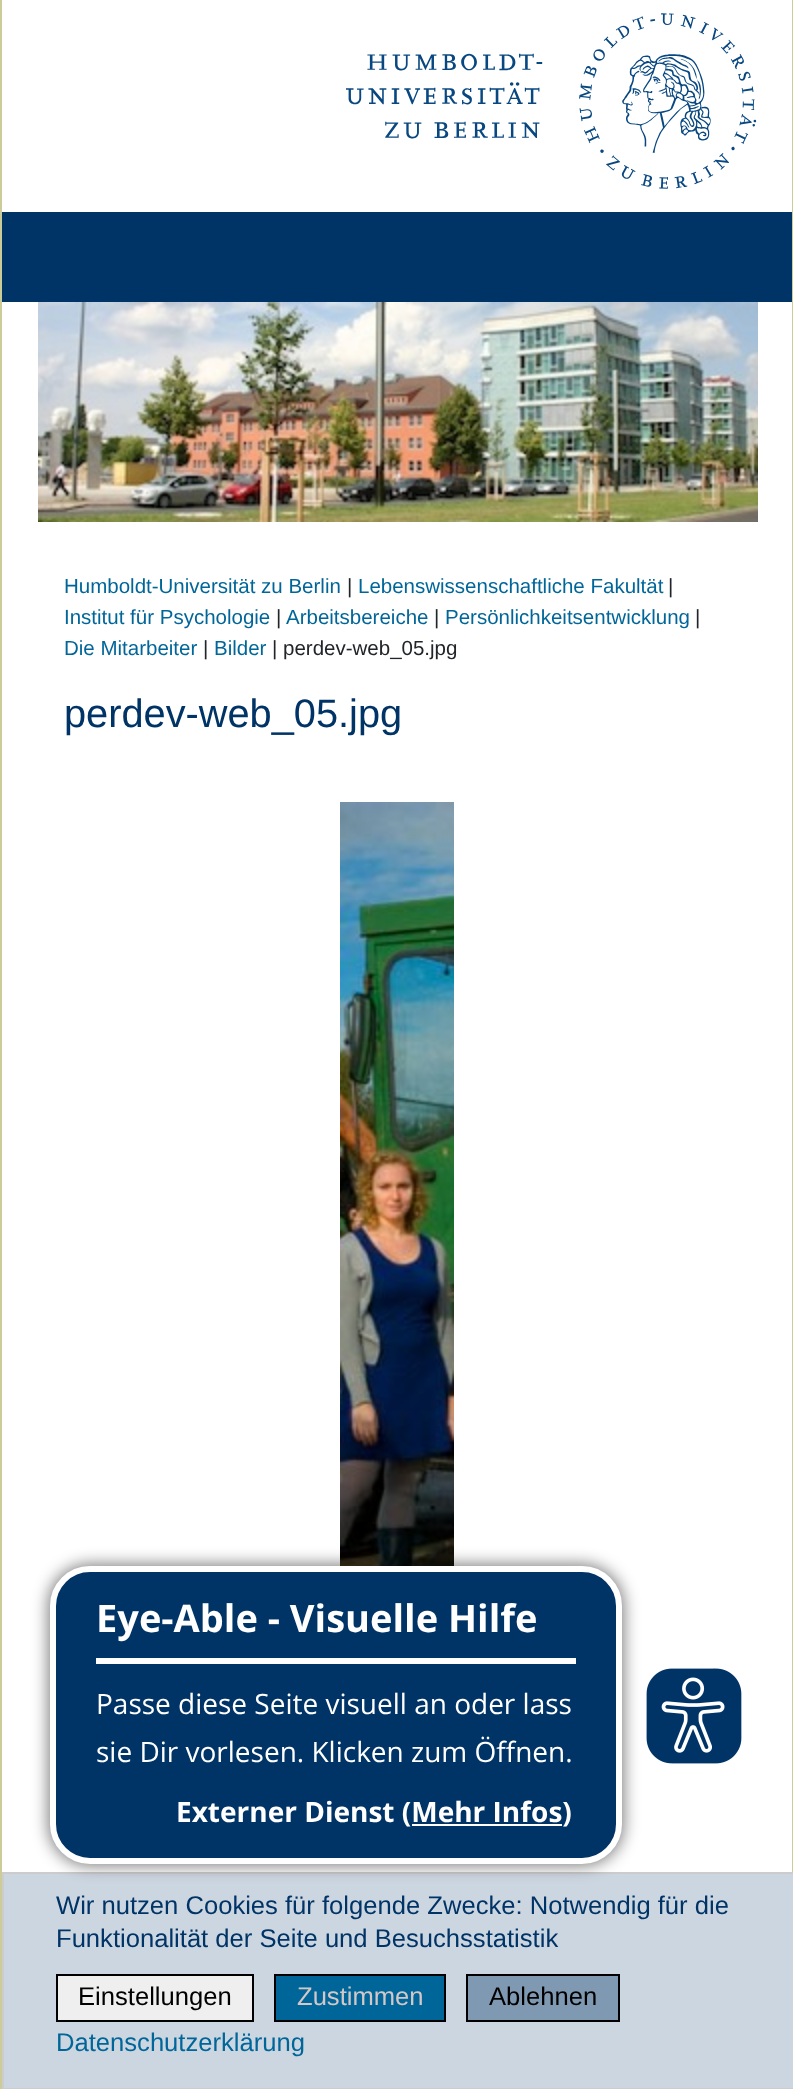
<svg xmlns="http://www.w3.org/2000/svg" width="793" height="2089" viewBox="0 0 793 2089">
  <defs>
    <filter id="blur1" x="-50%" y="-200%" width="200%" height="500%"><feGaussianBlur stdDeviation="8"/></filter>
  </defs>
  <rect width="100%" height="100%" fill="#ffffff"/>
  <image x="346" y="13" width="411" height="176" href="img1.png"/>
  <rect x="2" y="212" width="790" height="90" fill="#003366"/>
  <image x="38" y="302" width="720" height="220" href="img2.png"/>
  <rect x="792" y="0" width="1" height="1872" fill="#cccc99"/>
  <rect x="0" y="0" width="2" height="2089" fill="#cccc99"/>
  <text x="64" y="593" font-family="Liberation Sans" font-size="20.5" fill="#006699">Humboldt-Universität zu Berlin</text>
  <text x="347" y="593" font-family="Liberation Sans" font-size="20.5" fill="#212529">|</text>
  <text x="358" y="593" font-family="Liberation Sans" font-size="20.5" fill="#006699">Lebenswissenschaftliche Fakultät</text>
  <text x="668" y="593" font-family="Liberation Sans" font-size="20.5" fill="#212529">|</text>
  <text x="64" y="624" font-family="Liberation Sans" font-size="20.5" fill="#006699">Institut für Psychologie</text>
  <text x="276" y="624" font-family="Liberation Sans" font-size="20.5" fill="#212529">|</text>
  <text x="286" y="624" font-family="Liberation Sans" font-size="20.5" fill="#006699">Arbeitsbereiche</text>
  <text x="434" y="624" font-family="Liberation Sans" font-size="20.5" fill="#212529">|</text>
  <text x="445" y="624" font-family="Liberation Sans" font-size="20.5" fill="#006699">Persönlichkeitsentwicklung</text>
  <text x="695" y="624" font-family="Liberation Sans" font-size="20.5" fill="#212529">|</text>
  <text x="64" y="655" font-family="Liberation Sans" font-size="20.5" fill="#006699">Die Mitarbeiter</text>
  <text x="203" y="655" font-family="Liberation Sans" font-size="20.5" fill="#212529">|</text>
  <text x="214" y="655" font-family="Liberation Sans" font-size="20.5" fill="#006699">Bilder</text>
  <text x="272" y="655" font-family="Liberation Sans" font-size="20.5" fill="#212529">| perdev-web_05.jpg</text>
  <text x="64" y="727" font-family="Liberation Sans" font-size="39.75" fill="#003366">perdev-web_05.jpg</text>
  <image x="340" y="802" width="114" height="764" href="img3.png"/>
  <rect x="3" y="1873" width="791" height="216" fill="#ccd6e0" stroke="#cccccc" stroke-width="2"/>
  <rect x="48" y="1564" width="576" height="302" rx="42" fill="#000000" fill-opacity="0.5" filter="url(#blur1)"/>
  <rect x="53" y="1569" width="566" height="292" rx="37" fill="#003366" stroke="#ffffff" stroke-width="6"/>
  <rect x="96" y="1658" width="480" height="6" fill="#ffffff"/>
  <text x="96" y="1632" font-family="Open Sans" font-size="38" font-weight="bold" fill="#ffffff">Eye-Able - Visuelle Hilfe</text>
  <text x="96" y="1714" font-family="Open Sans" font-size="28" fill="#ffffff">Passe diese Seite visuell an oder lass</text>
  <text x="96" y="1762" font-family="Open Sans" font-size="28" fill="#ffffff">sie Dir vorlesen. Klicken zum Öffnen.</text>
  <text x="176" y="1822" font-family="Open Sans" font-size="28" font-weight="bold" fill="#ffffff">Externer Dienst (Mehr Infos)</text>
  <rect x="412" y="1824" width="150" height="2" fill="#ffffff"/>
  <image x="646" y="1668" width="96" height="96" href="img4.png"/>
  <text x="56" y="1914" font-family="Liberation Sans" font-size="25.6" fill="#003366">Wir nutzen Cookies für folgende Zwecke: Notwendig für die</text>
  <text x="56" y="1947" font-family="Liberation Sans" font-size="25.6" fill="#003366">Funktionalität der Seite und Besuchsstatistik</text>
  <rect x="57" y="1975" width="196" height="46" fill="#efefef" stroke="#000000" stroke-width="2"/>
  <text x="78" y="2005" font-family="Liberation Sans" font-size="25.6" fill="#000000">Einstellungen</text>
  <rect x="275" y="1975" width="170" height="46" fill="#006699" stroke="#000000" stroke-width="2"/>
  <text x="297" y="2005" font-family="Liberation Sans" font-size="25.6" fill="#d5c7c7">Zustimmen</text>
  <rect x="467" y="1975" width="152" height="46" fill="#8099b2" stroke="#000000" stroke-width="2"/>
  <text x="489" y="2005" font-family="Liberation Sans" font-size="25.6" fill="#000000">Ablehnen</text>
  <text x="56" y="2051" font-family="Liberation Sans" font-size="25.6" fill="#006699">Datenschutzerklärung</text>
</svg>
